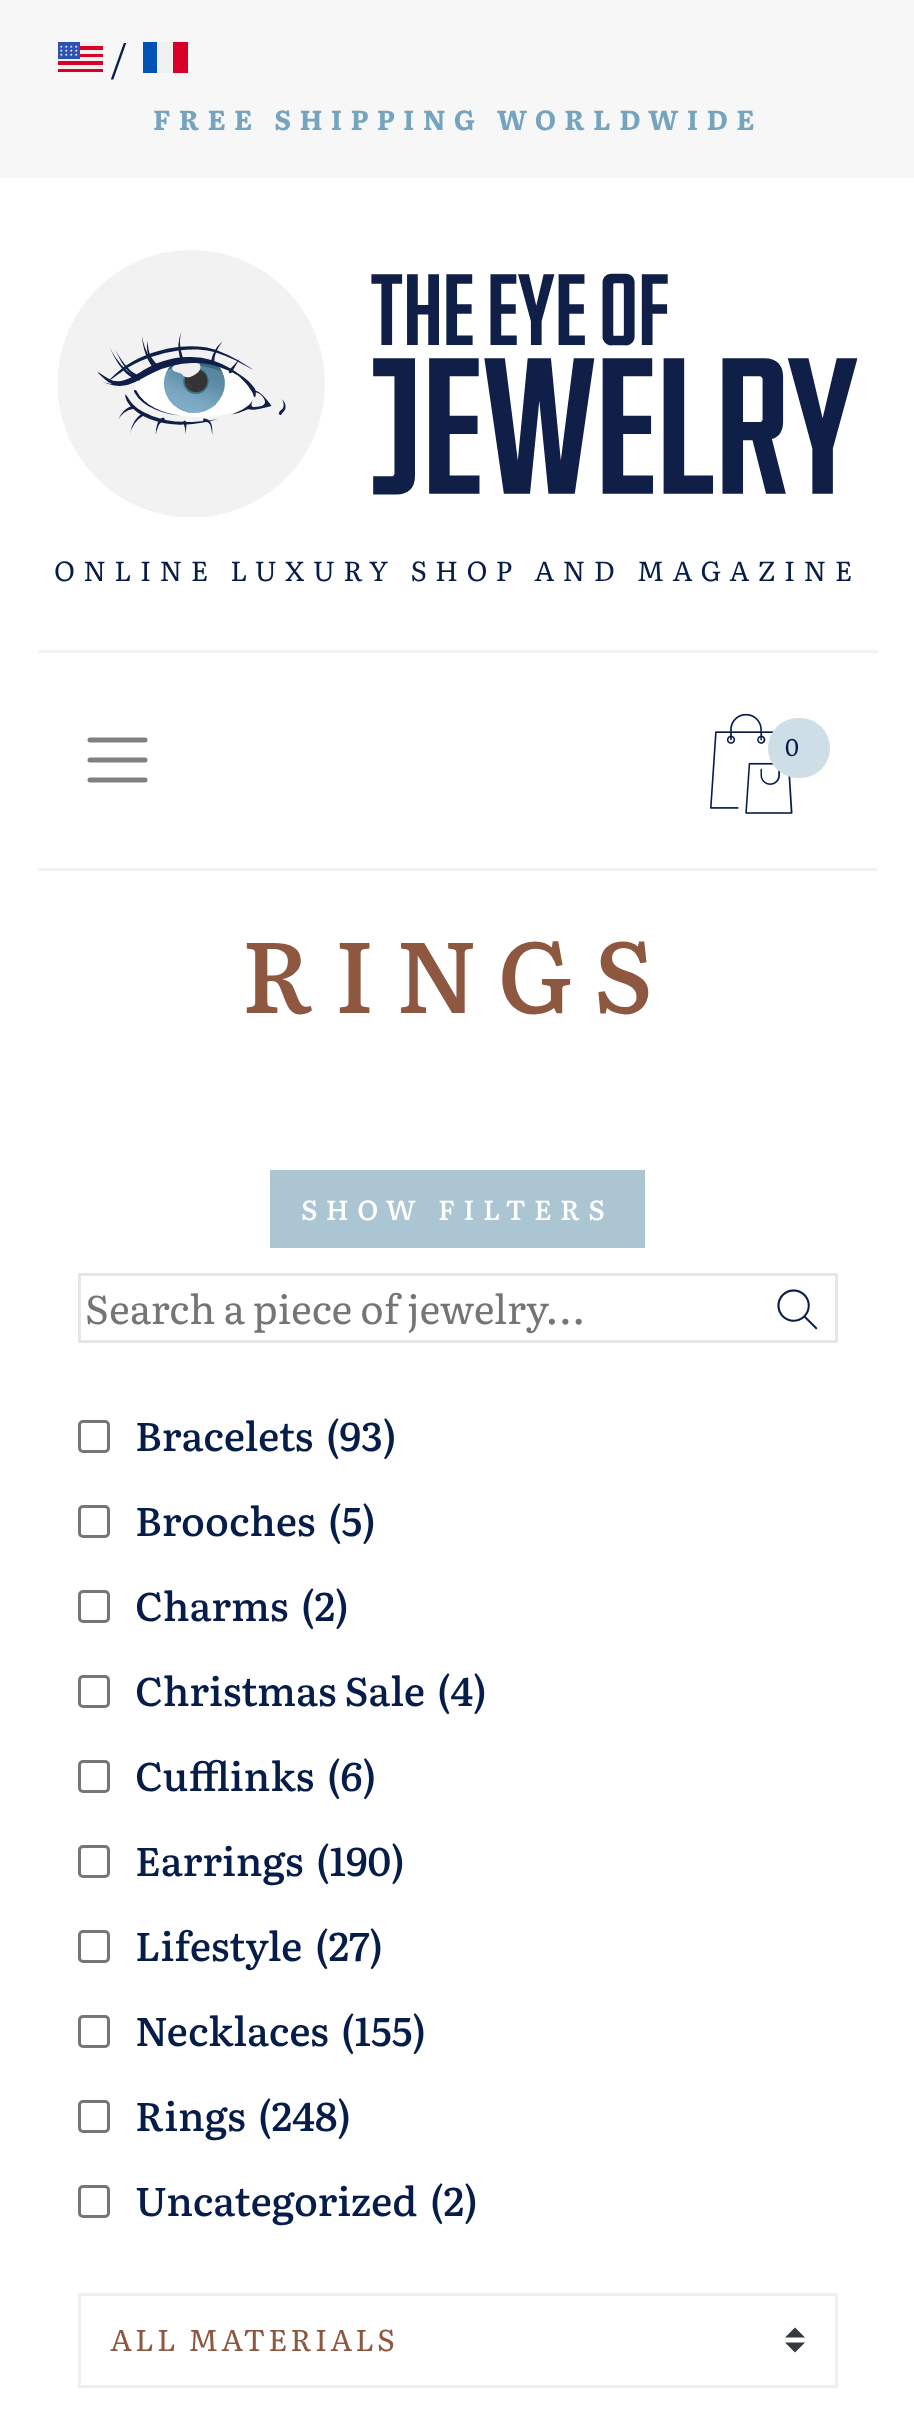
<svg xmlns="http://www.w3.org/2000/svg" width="914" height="2413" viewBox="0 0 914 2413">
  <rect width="100%" height="100%" fill="#ffffff"/>
  <rect x="0" y="0" width="914" height="178" fill="#f7f7f8"/>
  <image x="58" y="42" width="45" height="31" href="img1.png"/>
  <text x="110" y="75" font-family="Literata" font-size="40" letter-spacing="12" fill="#071d49">/</text>
  <rect x="143" y="42" width="14" height="31" fill="#0052b4"/>
  <rect x="157" y="42" width="16" height="31" fill="#f0f0f0"/>
  <rect x="173" y="42" width="15" height="31" fill="#d80027"/>
  <text x="153" y="130" font-family="Literata" font-size="27.5" font-weight="bold" letter-spacing="8.25" fill="#76a4be">FREE SHIPPING WORLDWIDE</text>
  <image x="58" y="250" width="800" height="267" href="img2.png"/>
  <text x="54" y="581" font-family="Literata" font-size="27.5" letter-spacing="8.25" fill="#071d49">ONLINE LUXURY SHOP AND MAGAZINE</text>
  <rect x="38" y="650" width="840" height="3" fill="#f2f2f2"/>
  <rect x="38" y="868" width="840" height="3" fill="#f2f2f2"/>
  <path d="M90 740H145M90 760H145M90 780H145" fill="none" stroke="#808080" stroke-width="5" stroke-linecap="round"/>
  <image x="710" y="713" width="83" height="101" href="img3.png"/>
  <rect x="768" y="718" width="62" height="60" rx="30" fill="#cddee7"/>
  <text x="785" y="756" font-family="Literata" font-size="24" letter-spacing="12" fill="#071d49">0</text>
  <text x="241" y="1013" font-family="Literata" font-size="100" font-weight="500" letter-spacing="20" fill="#8e5840">RINGS</text>
  <rect x="270" y="1170" width="375" height="78" fill="#abc5d2"/>
  <text x="301" y="1220" font-family="Literata" font-size="27.5" font-weight="500" letter-spacing="8.25" fill="#ffffff">SHOW FILTERS</text>
  <rect x="79.5" y="1274.5" width="757" height="67" fill="none" stroke="#e6e6e6" stroke-width="3"/>
  <text x="85" y="1324" font-family="Literata" font-size="40" fill="#757575">Search a piece of jewelry...</text>
  <image x="777" y="1289" width="41" height="41" href="img4.png"/>
  <rect x="79.5" y="1421.5" width="29" height="30" rx="3.5" fill="none" stroke="#767676" stroke-width="3"/>
  <text x="135" y="1451" font-family="Literata" font-size="40" font-weight="500" fill="#071d49">Bracelets</text>
  <text x="326" y="1451" font-family="Literata" font-size="40" font-weight="500" fill="#071d49">(93)</text>
  <rect x="79.5" y="1506.5" width="29" height="30" rx="3.5" fill="none" stroke="#767676" stroke-width="3"/>
  <text x="135" y="1536" font-family="Literata" font-size="40" font-weight="500" fill="#071d49">Brooches</text>
  <text x="328" y="1536" font-family="Literata" font-size="40" font-weight="500" fill="#071d49">(5)</text>
  <rect x="79.5" y="1591.5" width="29" height="30" rx="3.5" fill="none" stroke="#767676" stroke-width="3"/>
  <text x="135" y="1621" font-family="Literata" font-size="40" font-weight="500" fill="#071d49">Charms</text>
  <text x="301" y="1621" font-family="Literata" font-size="40" font-weight="500" fill="#071d49">(2)</text>
  <rect x="79.5" y="1676.5" width="29" height="30" rx="3.5" fill="none" stroke="#767676" stroke-width="3"/>
  <text x="135" y="1706" font-family="Literata" font-size="40" font-weight="500" fill="#071d49">Christmas Sale</text>
  <text x="437" y="1706" font-family="Literata" font-size="40" font-weight="500" fill="#071d49">(4)</text>
  <rect x="79.5" y="1761.5" width="29" height="30" rx="3.5" fill="none" stroke="#767676" stroke-width="3"/>
  <text x="135" y="1791" font-family="Literata" font-size="40" font-weight="500" fill="#071d49">Cufflinks</text>
  <text x="327" y="1791" font-family="Literata" font-size="40" font-weight="500" fill="#071d49">(6)</text>
  <rect x="79.5" y="1846.5" width="29" height="30" rx="3.5" fill="none" stroke="#767676" stroke-width="3"/>
  <text x="135" y="1876" font-family="Literata" font-size="40" font-weight="500" fill="#071d49">Earrings</text>
  <text x="316" y="1876" font-family="Literata" font-size="40" font-weight="500" fill="#071d49">(190)</text>
  <rect x="79.5" y="1931.5" width="29" height="30" rx="3.5" fill="none" stroke="#767676" stroke-width="3"/>
  <text x="135" y="1961" font-family="Literata" font-size="40" font-weight="500" fill="#071d49">Lifestyle</text>
  <text x="315" y="1961" font-family="Literata" font-size="40" font-weight="500" fill="#071d49">(27)</text>
  <rect x="79.5" y="2016.5" width="29" height="30" rx="3.5" fill="none" stroke="#767676" stroke-width="3"/>
  <text x="135" y="2046" font-family="Literata" font-size="40" font-weight="500" fill="#071d49">Necklaces</text>
  <text x="341" y="2046" font-family="Literata" font-size="40" font-weight="500" fill="#071d49">(155)</text>
  <rect x="79.5" y="2101.5" width="29" height="30" rx="3.5" fill="none" stroke="#767676" stroke-width="3"/>
  <text x="135" y="2131" font-family="Literata" font-size="40" font-weight="500" fill="#071d49">Rings</text>
  <text x="258" y="2131" font-family="Literata" font-size="40" font-weight="500" fill="#071d49">(248)</text>
  <rect x="79.5" y="2186.5" width="29" height="30" rx="3.5" fill="none" stroke="#767676" stroke-width="3"/>
  <text x="135" y="2216" font-family="Literata" font-size="40" font-weight="500" fill="#071d49">Uncategorized</text>
  <text x="430" y="2216" font-family="Literata" font-size="40" font-weight="500" fill="#071d49">(2)</text>
  <path d="M795 2327.5L785 2337.5H805ZM795 2352.5L785 2342.5H805Z" fill="#343a40"/>
  <rect x="79.5" y="2294.5" width="757" height="92" fill="none" stroke="#eeeff0" stroke-width="3"/>
  <text x="110" y="2351" font-family="Literata" font-size="30" letter-spacing="3" fill="#8e5840">ALL MATERIALS</text>
</svg>
